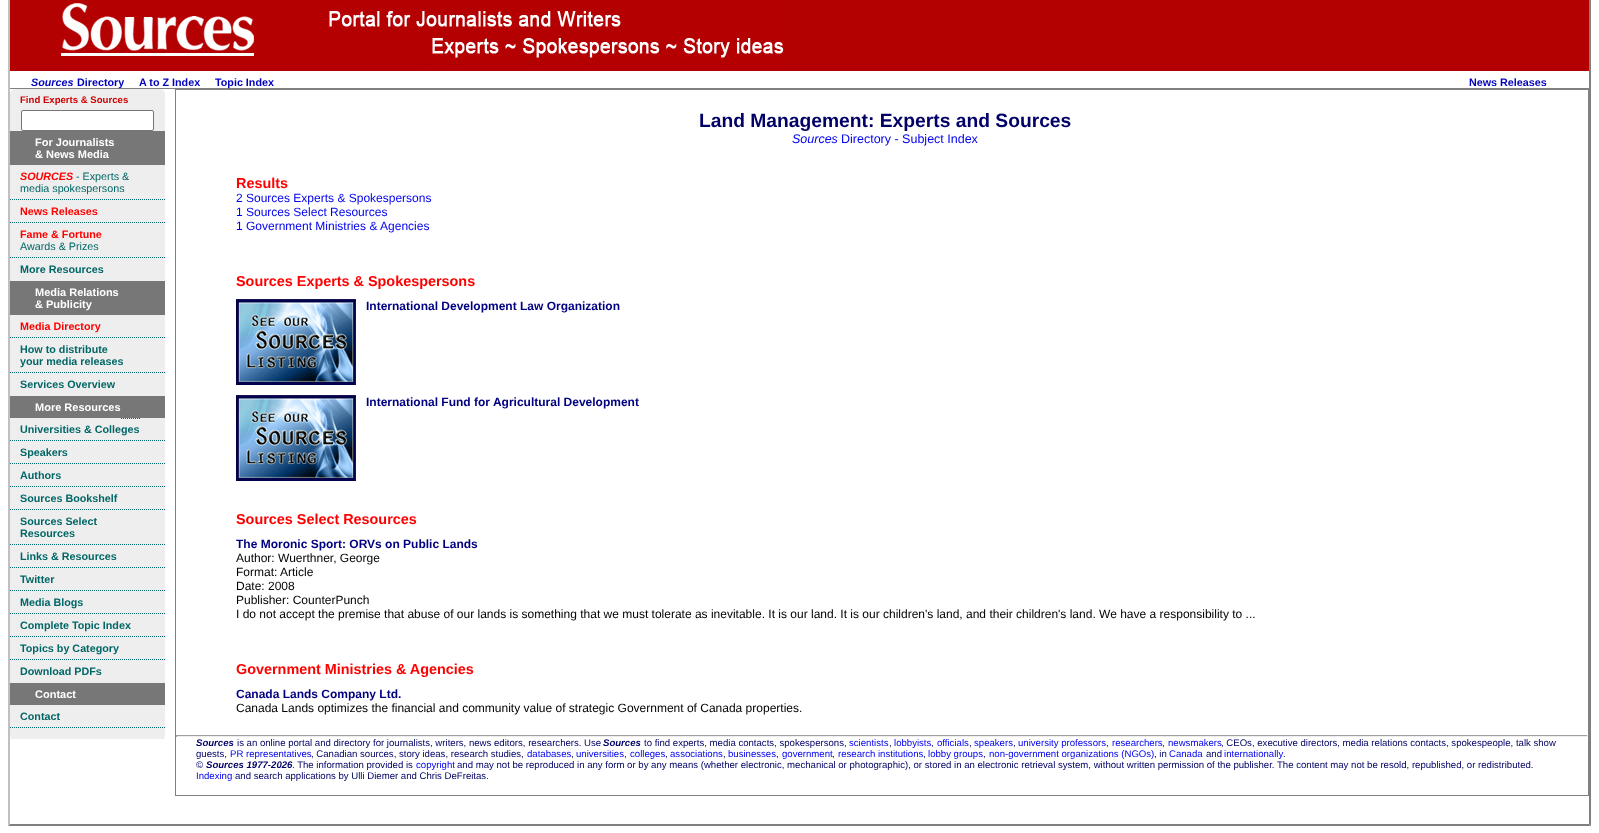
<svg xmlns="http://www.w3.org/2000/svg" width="1599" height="833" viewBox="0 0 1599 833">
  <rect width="100%" height="100%" fill="#ffffff"/>
  <path d="M1591-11V826L1589 824V-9Z" fill="#808080"/>
  <path d="M1591 826H8L10 824H1589Z" fill="#808080"/>
  <path d="M8 826V-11L10-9V824Z" fill="#c0c0c0"/>
  <rect x="10" y="0" width="1579" height="71" fill="#b30000"/>
  <image x="58" y="0" width="727" height="70" href="img1.png"/>
  <rect x="10" y="88" width="1579" height="1" fill="#808080"/>
  <text x="31" y="86" font-family="Liberation Sans" font-size="10.75" font-weight="bold" font-style="italic" fill="#0000bb">Sources</text>
  <text x="77" y="86" font-family="Liberation Sans" font-size="10.75" font-weight="bold" fill="#0000bb">Directory</text>
  <text x="139" y="86" font-family="Liberation Sans" font-size="10.75" font-weight="bold" fill="#0000bb">A to Z Index</text>
  <text x="215" y="86" font-family="Liberation Sans" font-size="10.75" font-weight="bold" fill="#0000bb">Topic Index</text>
  <text x="1469" y="86" font-family="Liberation Sans" font-size="10.75" font-weight="bold" fill="#0000bb">News Releases</text>
  <rect x="10" y="89" width="155" height="650" rx="5" fill="#eeeeee"/>
  <text x="20" y="103" font-family="Liberation Sans" font-size="9.6" font-weight="bold" fill="#cc0000">Find Experts &amp; Sources</text>
  <rect x="21.5" y="110.5" width="132" height="20" rx="1.5" fill="#ffffff" stroke="#767676"/>
  <rect x="10" y="131" width="155" height="34" fill="#777777"/>
  <text x="35" y="146" font-family="Liberation Sans" font-size="11" font-weight="bold" fill="#ffffff">For Journalists</text>
  <text x="35" y="158" font-family="Liberation Sans" font-size="11" font-weight="bold" fill="#ffffff">&amp; News Media</text>
  <path d="M10 199.5H165" fill="none" stroke="#006666" stroke-dasharray="1 1"/>
  <text x="20" y="180" font-family="Liberation Sans" font-size="10.75" font-weight="bold" font-style="italic" fill="#ff0000">SOURCES</text>
  <text x="76" y="180" font-family="Liberation Sans" font-size="10.75" fill="#006666">- Experts &amp;</text>
  <text x="20" y="192" font-family="Liberation Sans" font-size="10.75" fill="#006666">media spokespersons</text>
  <path d="M10 222.5H165" fill="none" stroke="#006666" stroke-dasharray="1 1"/>
  <text x="20" y="215" font-family="Liberation Sans" font-size="10.75" font-weight="bold" fill="#ff0000">News Releases</text>
  <path d="M10 257.5H165" fill="none" stroke="#006666" stroke-dasharray="1 1"/>
  <text x="20" y="238" font-family="Liberation Sans" font-size="10.75" font-weight="bold" fill="#ff0000">Fame &amp; Fortune</text>
  <text x="20" y="250" font-family="Liberation Sans" font-size="10.75" fill="#006666">Awards &amp; Prizes</text>
  <text x="20" y="273" font-family="Liberation Sans" font-size="10.75" font-weight="bold" fill="#006666">More Resources</text>
  <rect x="10" y="281" width="155" height="34" fill="#777777"/>
  <text x="35" y="296" font-family="Liberation Sans" font-size="11" font-weight="bold" fill="#ffffff">Media Relations</text>
  <text x="35" y="308" font-family="Liberation Sans" font-size="11" font-weight="bold" fill="#ffffff">&amp; Publicity</text>
  <path d="M10 337.5H165" fill="none" stroke="#006666" stroke-dasharray="1 1"/>
  <text x="20" y="330" font-family="Liberation Sans" font-size="10.75" font-weight="bold" fill="#ff0000">Media Directory</text>
  <path d="M10 372.5H165" fill="none" stroke="#006666" stroke-dasharray="1 1"/>
  <text x="20" y="353" font-family="Liberation Sans" font-size="10.75" font-weight="bold" fill="#006666">How to distribute</text>
  <text x="20" y="365" font-family="Liberation Sans" font-size="10.75" font-weight="bold" fill="#006666">your media releases</text>
  <text x="20" y="388" font-family="Liberation Sans" font-size="10.75" font-weight="bold" fill="#006666">Services Overview</text>
  <rect x="10" y="396" width="155" height="22" fill="#777777"/>
  <text x="35" y="411" font-family="Liberation Sans" font-size="11" font-weight="bold" fill="#ffffff">More Resources</text>
  <path d="M121 418.5H141" fill="none" stroke="#006666" stroke-dasharray="1 1"/>
  <path d="M10 440.5H165" fill="none" stroke="#006666" stroke-dasharray="1 1"/>
  <text x="20" y="433" font-family="Liberation Sans" font-size="10.75" font-weight="bold" fill="#006666">Universities &amp; Colleges</text>
  <path d="M10 463.5H165" fill="none" stroke="#006666" stroke-dasharray="1 1"/>
  <text x="20" y="456" font-family="Liberation Sans" font-size="10.75" font-weight="bold" fill="#006666">Speakers</text>
  <path d="M10 486.5H165" fill="none" stroke="#006666" stroke-dasharray="1 1"/>
  <text x="20" y="479" font-family="Liberation Sans" font-size="10.75" font-weight="bold" fill="#006666">Authors</text>
  <path d="M10 509.5H165" fill="none" stroke="#006666" stroke-dasharray="1 1"/>
  <text x="20" y="502" font-family="Liberation Sans" font-size="10.75" font-weight="bold" fill="#006666">Sources Bookshelf</text>
  <path d="M10 544.5H165" fill="none" stroke="#006666" stroke-dasharray="1 1"/>
  <text x="20" y="525" font-family="Liberation Sans" font-size="10.75" font-weight="bold" fill="#006666">Sources Select</text>
  <text x="20" y="537" font-family="Liberation Sans" font-size="10.75" font-weight="bold" fill="#006666">Resources</text>
  <path d="M10 567.5H165" fill="none" stroke="#006666" stroke-dasharray="1 1"/>
  <text x="20" y="560" font-family="Liberation Sans" font-size="10.75" font-weight="bold" fill="#006666">Links &amp; Resources</text>
  <path d="M10 590.5H165" fill="none" stroke="#006666" stroke-dasharray="1 1"/>
  <text x="20" y="583" font-family="Liberation Sans" font-size="10.75" font-weight="bold" fill="#006666">Twitter</text>
  <path d="M10 613.5H165" fill="none" stroke="#006666" stroke-dasharray="1 1"/>
  <text x="20" y="606" font-family="Liberation Sans" font-size="10.75" font-weight="bold" fill="#006666">Media Blogs</text>
  <path d="M10 636.5H165" fill="none" stroke="#006666" stroke-dasharray="1 1"/>
  <text x="20" y="629" font-family="Liberation Sans" font-size="10.75" font-weight="bold" fill="#006666">Complete Topic Index</text>
  <path d="M10 659.5H165" fill="none" stroke="#006666" stroke-dasharray="1 1"/>
  <text x="20" y="652" font-family="Liberation Sans" font-size="10.75" font-weight="bold" fill="#006666">Topics by Category</text>
  <text x="20" y="675" font-family="Liberation Sans" font-size="10.75" font-weight="bold" fill="#006666">Download PDFs</text>
  <rect x="10" y="683" width="155" height="56" rx="5" fill="#eeeeee"/>
  <rect x="10" y="683" width="155" height="22" fill="#777777"/>
  <text x="35" y="698" font-family="Liberation Sans" font-size="11" font-weight="bold" fill="#ffffff">Contact</text>
  <path d="M10 727.5H165" fill="none" stroke="#006666" stroke-dasharray="1 1"/>
  <text x="20" y="720" font-family="Liberation Sans" font-size="10.75" font-weight="bold" fill="#006666">Contact</text>
  <rect x="10" y="738" width="155" height="1" fill="#eeeeee"/>
  <rect x="175.5" y="89.5" width="1413" height="706" fill="none" stroke="#808080"/>
  <text x="699" y="127" font-family="Liberation Sans" font-size="19.25" font-weight="bold" fill="#000066">Land Management: Experts and Sources</text>
  <text x="792" y="143" font-family="Liberation Sans" font-size="12.5" font-style="italic" fill="#0000ee">Sources</text>
  <text x="841" y="143" font-family="Liberation Sans" font-size="12.5" fill="#0000ee">Directory - Subject Index</text>
  <text x="236" y="188" font-family="Liberation Sans" font-size="14.4" font-weight="bold" fill="#ff0000">Results</text>
  <text x="236" y="202" font-family="Liberation Sans" font-size="12" fill="#0000ee">2 Sources Experts &amp; Spokespersons</text>
  <text x="236" y="216" font-family="Liberation Sans" font-size="12" fill="#0000ee">1 Sources Select Resources</text>
  <text x="236" y="230" font-family="Liberation Sans" font-size="12" fill="#0000ee">1 Government Ministries &amp; Agencies</text>
  <text x="236" y="286" font-family="Liberation Sans" font-size="14.4" font-weight="bold" fill="#ff0000">Sources Experts &amp; Spokespersons</text>
  <image x="236" y="299" width="120" height="86" href="img2.png"/>
  <text x="366" y="310" font-family="Liberation Sans" font-size="12" font-weight="bold" fill="#000080">International Development Law Organization</text>
  <image x="236" y="395" width="120" height="86" href="img2.png"/>
  <text x="366" y="406" font-family="Liberation Sans" font-size="12" font-weight="bold" fill="#000080">International Fund for Agricultural Development</text>
  <text x="236" y="524" font-family="Liberation Sans" font-size="14.4" font-weight="bold" fill="#ff0000">Sources Select Resources</text>
  <text x="236" y="548" font-family="Liberation Sans" font-size="12" font-weight="bold" fill="#000080">The Moronic Sport: ORVs on Public Lands</text>
  <text x="236" y="562" font-family="Liberation Sans" font-size="12" fill="#000000">Author: Wuerthner, George</text>
  <text x="236" y="576" font-family="Liberation Sans" font-size="12" fill="#000000">Format:</text>
  <text x="280" y="576" font-family="Liberation Sans" font-size="12" fill="#000000">Article</text>
  <text x="236" y="590" font-family="Liberation Sans" font-size="12" fill="#000000">Date: 2008</text>
  <text x="236" y="604" font-family="Liberation Sans" font-size="12" fill="#000000">Publisher: CounterPunch</text>
  <text x="236" y="618" font-family="Liberation Sans" font-size="12" fill="#000000">I do not accept the premise that abuse of our lands is something that we must tolerate as inevitable. It is our land. It is our children's land, and their children's land. We have a responsibility to ...</text>
  <text x="236" y="674" font-family="Liberation Sans" font-size="14.4" font-weight="bold" fill="#ff0000">Government Ministries &amp; Agencies</text>
  <text x="236" y="698" font-family="Liberation Sans" font-size="12" font-weight="bold" fill="#000080">Canada Lands Company Ltd.</text>
  <text x="236" y="712" font-family="Liberation Sans" font-size="12" fill="#000000">Canada Lands optimizes the financial and community value of strategic Government of Canada properties.</text>
  <rect x="176" y="735" width="1412" height="1" fill="#9f9f9f"/>
  <rect x="1587" y="735" width="1" height="2" fill="#eeeeee"/>
  <rect x="176" y="736" width="1412" height="1" fill="#eeeeee"/>
  <rect x="176" y="735" width="1" height="2" fill="#9f9f9f"/>
  <text x="196" y="746" font-family="Liberation Sans" font-size="9.6" font-weight="bold" font-style="italic" fill="#000066">Sources</text>
  <text x="237" y="746" font-family="Liberation Sans" font-size="9.6" fill="#000066">is an online portal and directory for journalists, writers, news editors, researchers. Use</text>
  <text x="603" y="746" font-family="Liberation Sans" font-size="9.6" font-weight="bold" font-style="italic" fill="#000066">Sources</text>
  <text x="644" y="746" font-family="Liberation Sans" font-size="9.6" fill="#000066">to find experts, media contacts, spokespersons,</text>
  <text x="849" y="746" font-family="Liberation Sans" font-size="9.6" fill="#0000ee">scientists</text>
  <text x="889" y="746" font-family="Liberation Sans" font-size="9.6" fill="#000066">,</text>
  <text x="894" y="746" font-family="Liberation Sans" font-size="9.6" fill="#0000ee">lobbyists</text>
  <text x="931" y="746" font-family="Liberation Sans" font-size="9.6" fill="#000066">,</text>
  <text x="937" y="746" font-family="Liberation Sans" font-size="9.6" fill="#0000ee">officials</text>
  <text x="969" y="746" font-family="Liberation Sans" font-size="9.6" fill="#000066">,</text>
  <text x="974" y="746" font-family="Liberation Sans" font-size="9.6" fill="#0000ee">speakers</text>
  <text x="1013" y="746" font-family="Liberation Sans" font-size="9.6" fill="#000066">,</text>
  <text x="1018" y="746" font-family="Liberation Sans" font-size="9.6" fill="#0000ee">university professors</text>
  <text x="1106" y="746" font-family="Liberation Sans" font-size="9.6" fill="#000066">,</text>
  <text x="1112" y="746" font-family="Liberation Sans" font-size="9.6" fill="#0000ee">researchers</text>
  <text x="1162" y="746" font-family="Liberation Sans" font-size="9.6" fill="#000066">,</text>
  <text x="1168" y="746" font-family="Liberation Sans" font-size="9.6" fill="#0000ee">newsmakers</text>
  <text x="1221" y="746" font-family="Liberation Sans" font-size="9.6" fill="#000066">, CEOs, executive directors, media relations contacts, spokespeople, talk show</text>
  <text x="196" y="757" font-family="Liberation Sans" font-size="9.6" fill="#000066">guests,</text>
  <text x="230" y="757" font-family="Liberation Sans" font-size="9.6" fill="#0000ee">PR representatives</text>
  <text x="311" y="757" font-family="Liberation Sans" font-size="9.6" fill="#000066">, Canadian sources, story ideas, research studies,</text>
  <text x="527" y="757" font-family="Liberation Sans" font-size="9.6" fill="#0000ee">databases</text>
  <text x="576" y="757" font-family="Liberation Sans" font-size="9.6" fill="#0000ee">universities</text>
  <text x="630" y="757" font-family="Liberation Sans" font-size="9.6" fill="#0000ee">colleges</text>
  <text x="670" y="757" font-family="Liberation Sans" font-size="9.6" fill="#0000ee">associations</text>
  <text x="728" y="757" font-family="Liberation Sans" font-size="9.6" fill="#0000ee">businesses</text>
  <text x="782" y="757" font-family="Liberation Sans" font-size="9.6" fill="#0000ee">government</text>
  <text x="838" y="757" font-family="Liberation Sans" font-size="9.6" fill="#0000ee">research institutions</text>
  <text x="928" y="757" font-family="Liberation Sans" font-size="9.6" fill="#0000ee">lobby groups</text>
  <text x="989" y="757" font-family="Liberation Sans" font-size="9.6" fill="#0000ee">non-government organizations (NGOs)</text>
  <text x="1154" y="757" font-family="Liberation Sans" font-size="9.6" fill="#000066">, in</text>
  <text x="1169" y="757" font-family="Liberation Sans" font-size="9.6" fill="#0000ee">Canada</text>
  <text x="1206" y="757" font-family="Liberation Sans" font-size="9.6" fill="#000066">and</text>
  <text x="1224" y="757" font-family="Liberation Sans" font-size="9.6" fill="#0000ee">internationally</text>
  <text x="571" y="757" font-family="Liberation Sans" font-size="9.6" fill="#000066">,</text>
  <text x="624" y="757" font-family="Liberation Sans" font-size="9.6" fill="#000066">,</text>
  <text x="665" y="757" font-family="Liberation Sans" font-size="9.6" fill="#000066">,</text>
  <text x="723" y="757" font-family="Liberation Sans" font-size="9.6" fill="#000066">,</text>
  <text x="776" y="757" font-family="Liberation Sans" font-size="9.6" fill="#000066">,</text>
  <text x="832" y="757" font-family="Liberation Sans" font-size="9.6" fill="#000066">,</text>
  <text x="923" y="757" font-family="Liberation Sans" font-size="9.6" fill="#000066">,</text>
  <text x="983" y="757" font-family="Liberation Sans" font-size="9.6" fill="#000066">,</text>
  <text x="1283" y="757" font-family="Liberation Sans" font-size="9.6" fill="#000066">.</text>
  <text x="196" y="768" font-family="Liberation Sans" font-size="9.6" fill="#000066">©</text>
  <text x="206" y="768" font-family="Liberation Sans" font-size="9.6" font-weight="bold" font-style="italic" fill="#000066">Sources 1977-2026</text>
  <text x="292" y="768" font-family="Liberation Sans" font-size="9.6" fill="#000066">. The information provided is</text>
  <text x="416" y="768" font-family="Liberation Sans" font-size="9.6" fill="#0000ee">copyright</text>
  <text x="457" y="768" font-family="Liberation Sans" font-size="9.6" fill="#000066">and may not be reproduced in any form or by any means (whether electronic, mechanical or photographic), or stored in an electronic retrieval system, without written permission of the publisher. The content may not be resold, republished, or redistributed.</text>
  <text x="196" y="779" font-family="Liberation Sans" font-size="9.6" fill="#0000ee">Indexing</text>
  <text x="235" y="779" font-family="Liberation Sans" font-size="9.6" fill="#000066">and search applications by Ulli Diemer and Chris DeFreitas.</text>
</svg>
